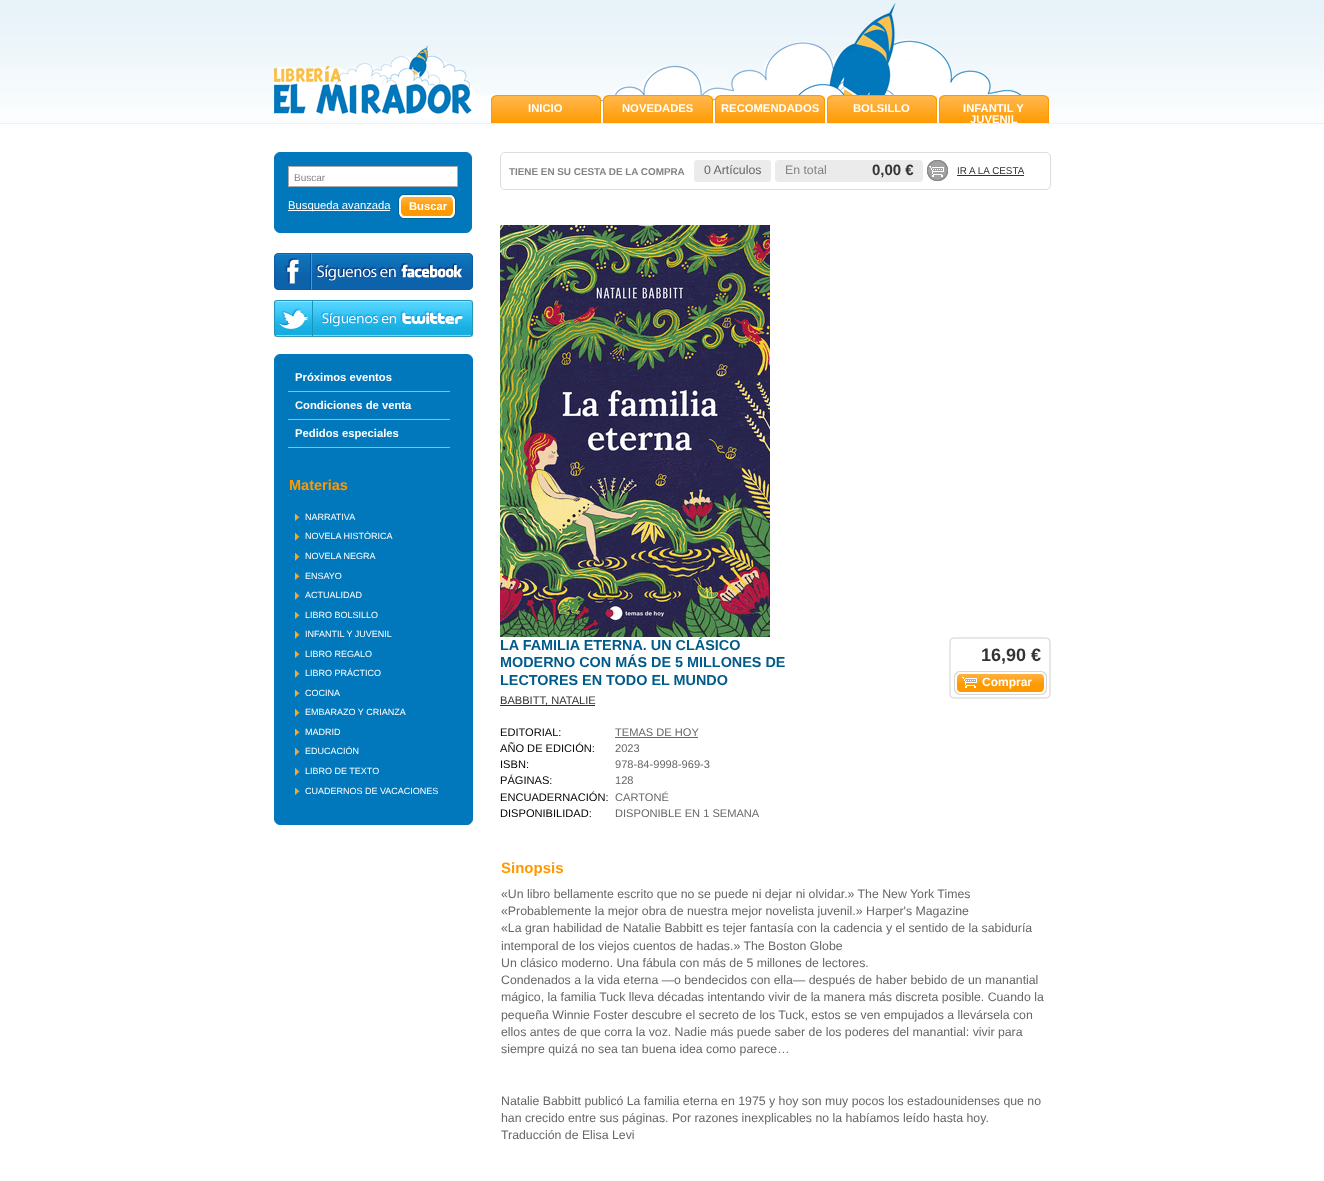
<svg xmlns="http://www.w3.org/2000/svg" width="1324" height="1181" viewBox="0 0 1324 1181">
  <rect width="100%" height="100%" fill="#ffffff"/>
  <image x="0" y="0" width="1324" height="124" href="img1.png"/>
  <image x="274" y="3" width="756" height="115" href="img2.png"/>
  <image x="274" y="45" width="198" height="69" href="img3.png"/>
  <image x="491" y="95" width="110" height="28" href="img4.png"/>
  <text x="528" y="112" font-family="Liberation Sans" font-size="11.25" font-weight="bold" fill="#ffffff">INICIO</text>
  <image x="603" y="95" width="110" height="28" href="img5.png"/>
  <text x="622" y="112" font-family="Liberation Sans" font-size="11.25" font-weight="bold" fill="#ffffff">NOVEDADES</text>
  <image x="715" y="95" width="110" height="28" href="img6.png"/>
  <text x="721" y="112" font-family="Liberation Sans" font-size="11.25" font-weight="bold" fill="#ffffff">RECOMENDADOS</text>
  <image x="827" y="95" width="110" height="28" href="img7.png"/>
  <text x="853" y="112" font-family="Liberation Sans" font-size="11.25" font-weight="bold" fill="#ffffff">BOLSILLO</text>
  <image x="939" y="95" width="110" height="28" href="img8.png"/>
  <text x="963" y="112" font-family="Liberation Sans" font-size="11.25" font-weight="bold" fill="#ffffff">INFANTIL Y</text>
  <text x="970" y="123" font-family="Liberation Sans" font-size="11.25" font-weight="bold" fill="#ffffff">JUVENIL</text>
  <rect x="274.5" y="152.5" width="197" height="80" rx="5.5" fill="#0178bc" stroke="#0178bc"/>
  <rect x="288.5" y="166.5" width="169" height="20" fill="#ffffff" stroke="#aaaaaa"/>
  <text x="294" y="181" font-family="Liberation Sans" font-size="10" fill="#848484">Buscar</text>
  <image x="398" y="194" width="58" height="25" href="img9.png"/>
  <text x="409" y="210" font-family="Liberation Sans" font-size="11.25" font-weight="bold" fill="#ffffff">Buscar</text>
  <rect x="288" y="210" width="102" height="1" fill="#ffffff"/>
  <text x="288" y="209" font-family="Liberation Sans" font-size="11.25" fill="#ffffff">Busqueda avanzada</text>
  <image x="274" y="253" width="199" height="37" href="img10.png"/>
  <image x="274" y="300" width="199" height="37" href="img11.png"/>
  <rect x="274.5" y="354.5" width="198" height="470" rx="5.5" fill="#0178bc" stroke="#0178bc"/>
  <rect x="288" y="391" width="162" height="1" fill="#7bc2e8"/>
  <text x="295" y="381" font-family="Liberation Sans" font-size="11.25" font-weight="bold" fill="#ffffff">Próximos eventos</text>
  <rect x="288" y="419" width="162" height="1" fill="#7bc2e8"/>
  <text x="295" y="409" font-family="Liberation Sans" font-size="11.25" font-weight="bold" fill="#ffffff">Condiciones de venta</text>
  <rect x="288" y="447" width="162" height="1" fill="#7bc2e8"/>
  <text x="295" y="437" font-family="Liberation Sans" font-size="11.25" font-weight="bold" fill="#ffffff">Pedidos especiales</text>
  <text x="289" y="490" font-family="Liberation Sans" font-size="14.5" font-weight="bold" fill="#ff9900">Materias</text>
  <image x="295" y="513" width="5" height="8" href="img12.png"/>
  <text x="305" y="520" font-family="Liberation Sans" font-size="9" fill="#ffffff">NARRATIVA</text>
  <image x="295" y="533" width="5" height="8" href="img13.png"/>
  <text x="305" y="539" font-family="Liberation Sans" font-size="9" fill="#ffffff">NOVELA HISTÓRICA</text>
  <image x="295" y="553" width="5" height="8" href="img13.png"/>
  <text x="305" y="559" font-family="Liberation Sans" font-size="9" fill="#ffffff">NOVELA NEGRA</text>
  <image x="295" y="572" width="5" height="8" href="img12.png"/>
  <text x="305" y="579" font-family="Liberation Sans" font-size="9" fill="#ffffff">ENSAYO</text>
  <image x="295" y="592" width="5" height="8" href="img13.png"/>
  <text x="305" y="598" font-family="Liberation Sans" font-size="9" fill="#ffffff">ACTUALIDAD</text>
  <image x="295" y="611" width="5" height="8" href="img12.png"/>
  <text x="305" y="618" font-family="Liberation Sans" font-size="9" fill="#ffffff">LIBRO BOLSILLO</text>
  <image x="295" y="631" width="5" height="8" href="img13.png"/>
  <text x="305" y="637" font-family="Liberation Sans" font-size="9" fill="#ffffff">INFANTIL Y JUVENIL</text>
  <image x="295" y="650" width="5" height="8" href="img12.png"/>
  <text x="305" y="657" font-family="Liberation Sans" font-size="9" fill="#ffffff">LIBRO REGALO</text>
  <image x="295" y="670" width="5" height="8" href="img13.png"/>
  <text x="305" y="676" font-family="Liberation Sans" font-size="9" fill="#ffffff">LIBRO PRÁCTICO</text>
  <image x="295" y="689" width="5" height="8" href="img12.png"/>
  <text x="305" y="696" font-family="Liberation Sans" font-size="9" fill="#ffffff">COCINA</text>
  <image x="295" y="709" width="5" height="8" href="img13.png"/>
  <text x="305" y="715" font-family="Liberation Sans" font-size="9" fill="#ffffff">EMBARAZO Y CRIANZA</text>
  <image x="295" y="728" width="5" height="8" href="img12.png"/>
  <text x="305" y="735" font-family="Liberation Sans" font-size="9" fill="#ffffff">MADRID</text>
  <image x="295" y="748" width="5" height="8" href="img13.png"/>
  <text x="305" y="754" font-family="Liberation Sans" font-size="9" fill="#ffffff">EDUCACIÓN</text>
  <image x="295" y="768" width="5" height="8" href="img13.png"/>
  <text x="305" y="774" font-family="Liberation Sans" font-size="9" fill="#ffffff">LIBRO DE TEXTO</text>
  <image x="295" y="787" width="5" height="8" href="img12.png"/>
  <text x="305" y="794" font-family="Liberation Sans" font-size="9" fill="#ffffff">CUADERNOS DE VACACIONES</text>
  <rect x="500.5" y="152.5" width="550" height="37" rx="4.5" fill="none" stroke="#dddddd"/>
  <text x="509" y="175" font-family="Liberation Sans" font-size="9.9" font-weight="bold" fill="#848484">TIENE EN SU CESTA DE LA COMPRA</text>
  <rect x="694" y="160" width="77" height="22" rx="3" fill="#ebebeb"/>
  <text x="704" y="174" font-family="Liberation Sans" font-size="12.3" fill="#666666">0 Artículos</text>
  <rect x="775" y="160" width="148" height="22" rx="4" fill="#ebebeb"/>
  <text x="785" y="174" font-family="Liberation Sans" font-size="12.3" fill="#848484">En total</text>
  <text x="872" y="175" font-family="Liberation Sans" font-size="15" font-weight="bold" fill="#333333">0,00 €</text>
  <image x="927" y="160" width="21" height="21" href="img14.png"/>
  <text x="957" y="174" font-family="Liberation Sans" font-size="9.9" fill="#333333">IR A LA CESTA</text>
  <rect x="957" y="175" width="67" height="1" fill="#333333"/>
  <image x="500" y="225" width="270" height="412" href="img15.png"/>
  <text x="500" y="650" font-family="Liberation Sans" font-size="14.4" font-weight="bold" fill="#005b8b">LA FAMILIA ETERNA. UN CLÁSICO</text>
  <text x="500" y="667" font-family="Liberation Sans" font-size="14.4" font-weight="bold" fill="#005b8b">MODERNO CON MÁS DE 5 MILLONES DE</text>
  <text x="500" y="685" font-family="Liberation Sans" font-size="14.4" font-weight="bold" fill="#005b8b">LECTORES EN TODO EL MUNDO</text>
  <rect x="500" y="705" width="95" height="1" fill="#333333"/>
  <text x="500" y="704" font-family="Liberation Sans" font-size="11.1" fill="#333333">BABBITT, NATALIE</text>
  <text x="500" y="736" font-family="Liberation Sans" font-size="11.1" fill="#000000">EDITORIAL:</text>
  <text x="615" y="736" font-family="Liberation Sans" font-size="11.1" fill="#666666">TEMAS DE HOY</text>
  <rect x="615" y="737" width="83" height="1" fill="#666666"/>
  <text x="500" y="752" font-family="Liberation Sans" font-size="11.1" fill="#000000">AÑO DE EDICIÓN:</text>
  <text x="615" y="752" font-family="Liberation Sans" font-size="11.1" fill="#666666">2023</text>
  <text x="500" y="768" font-family="Liberation Sans" font-size="11.1" fill="#000000">ISBN:</text>
  <text x="615" y="768" font-family="Liberation Sans" font-size="11.1" fill="#666666">978-84-9998-969-3</text>
  <text x="500" y="784" font-family="Liberation Sans" font-size="11.1" fill="#000000">PÁGINAS:</text>
  <text x="615" y="784" font-family="Liberation Sans" font-size="11.1" fill="#666666">128</text>
  <text x="500" y="801" font-family="Liberation Sans" font-size="11.1" fill="#000000">ENCUADERNACIÓN:</text>
  <text x="615" y="801" font-family="Liberation Sans" font-size="11.1" fill="#666666">CARTONÉ</text>
  <text x="500" y="817" font-family="Liberation Sans" font-size="11.1" fill="#000000">DISPONIBILIDAD:</text>
  <text x="615" y="817" font-family="Liberation Sans" font-size="11.1" fill="#666666">DISPONIBLE EN 1 SEMANA</text>
  <image x="949" y="637" width="102" height="62" href="img16.png"/>
  <text x="981" y="661" font-family="Liberation Sans" font-size="18" font-weight="bold" fill="#333333">16,90 €</text>
  <text x="982" y="686" font-family="Liberation Sans" font-size="12" font-weight="bold" fill="#ffffff">Comprar</text>
  <text x="501" y="873" font-family="Liberation Sans" font-size="15" font-weight="bold" fill="#ff9900">Sinopsis</text>
  <text x="501" y="898" font-family="Liberation Sans" font-size="12.3" fill="#666666">«Un libro bellamente escrito que no se puede ni dejar ni olvidar.» The New York Times</text>
  <text x="501" y="915" font-family="Liberation Sans" font-size="12.3" fill="#666666">«Probablemente la mejor obra de nuestra mejor novelista juvenil.» Harper's Magazine</text>
  <text x="501" y="932" font-family="Liberation Sans" font-size="12.3" fill="#666666">«La gran habilidad de Natalie Babbitt es tejer fantasía con la cadencia y el sentido de la sabiduría</text>
  <text x="501" y="950" font-family="Liberation Sans" font-size="12.3" fill="#666666">intemporal de los viejos cuentos de hadas.» The Boston Globe</text>
  <text x="501" y="967" font-family="Liberation Sans" font-size="12.3" fill="#666666">Un clásico moderno. Una fábula con más de 5 millones de lectores.</text>
  <text x="501" y="984" font-family="Liberation Sans" font-size="12.3" fill="#666666">Condenados a la vida eterna —o bendecidos con ella— después de haber bebido de un manantial</text>
  <text x="501" y="1001" font-family="Liberation Sans" font-size="12.3" fill="#666666">mágico, la familia Tuck lleva décadas intentando vivir de la manera más discreta posible. Cuando la</text>
  <text x="501" y="1019" font-family="Liberation Sans" font-size="12.3" fill="#666666">pequeña Winnie Foster descubre el secreto de los Tuck, estos se ven empujados a llevársela con</text>
  <text x="501" y="1036" font-family="Liberation Sans" font-size="12.3" fill="#666666">ellos antes de que corra la voz. Nadie más puede saber de los poderes del manantial: vivir para</text>
  <text x="501" y="1053" font-family="Liberation Sans" font-size="12.3" fill="#666666">siempre quizá no sea tan buena idea como parece…</text>
  <text x="501" y="1105" font-family="Liberation Sans" font-size="12.3" fill="#666666">Natalie Babbitt publicó La familia eterna en 1975 y hoy son muy pocos los estadounidenses que no</text>
  <text x="501" y="1122" font-family="Liberation Sans" font-size="12.3" fill="#666666">han crecido entre sus páginas. Por razones inexplicables no la habíamos leído hasta hoy.</text>
  <text x="501" y="1139" font-family="Liberation Sans" font-size="12.3" fill="#666666">Traducción de Elisa Levi</text>
</svg>
